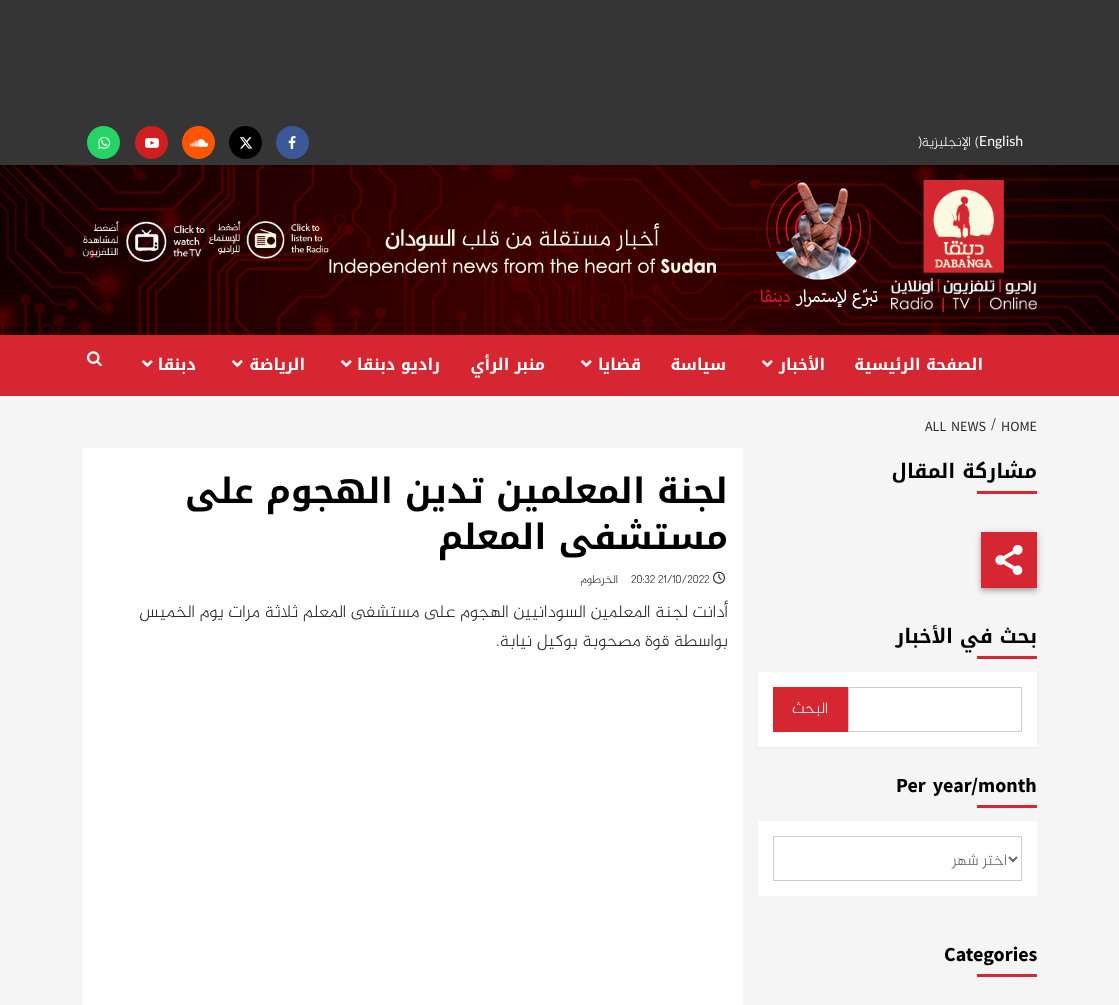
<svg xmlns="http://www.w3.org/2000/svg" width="1119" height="1005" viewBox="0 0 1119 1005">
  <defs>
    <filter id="blur1" x="-50%" y="-200%" width="200%" height="500%"><feGaussianBlur stdDeviation="5"/></filter>
    <filter id="blur2" x="-50%" y="-200%" width="200%" height="500%"><feGaussianBlur stdDeviation="2.5"/></filter>
    <filter id="blur3" x="-50%" y="-200%" width="200%" height="500%"><feGaussianBlur stdDeviation="2"/></filter>
    <filter id="blur4" x="-50%" y="-200%" width="200%" height="500%"><feGaussianBlur stdDeviation="1"/></filter>
  </defs>
  <rect width="100%" height="100%" fill="#f5f5f5"/>
  <rect x="0" y="0" width="1119" height="165" fill="#353535"/>
  <text x="979" y="146" font-family="Lato" font-size="14" fill="#ffffff">English</text>
  <text x="975" y="146" font-family="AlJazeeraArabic" font-size="14" font-weight="300" fill="#ffffff">(</text>
  <text x="971" y="146" font-family="AlJazeeraArabic" font-size="14" font-weight="300" direction="rtl" fill="#ffffff">الإنجليزية</text>
  <text x="918" y="146" font-family="AlJazeeraArabic" font-size="14" font-weight="300" fill="#ffffff">)</text>
  <circle cx="292.5" cy="142.5" r="16.5" fill="#3b5999"/>
  <image x="288" y="136" width="8" height="13" href="img1.png"/>
  <circle cx="245.5" cy="142.5" r="16.5" fill="#000000"/>
  <image x="239" y="137" width="14" height="12" href="img2.png"/>
  <circle cx="198.5" cy="142.5" r="16.5" fill="#ff5500"/>
  <image x="190" y="139" width="18" height="8" href="img3.png"/>
  <circle cx="151.5" cy="142.5" r="16.5" fill="#cd201f"/>
  <image x="145" y="138" width="14" height="10" href="img4.png"/>
  <circle cx="103.5" cy="142.5" r="16.5" fill="#25d366"/>
  <image x="98" y="137" width="12" height="12" href="img5.png"/>
  <image x="0" y="165" width="1119" height="170" href="img6.png"/>
  <image x="891" y="180" width="146" height="132" href="img7.png"/>
  <image x="760" y="180" width="118" height="129" href="img8.png"/>
  <image x="329" y="223" width="387" height="54" href="img9.png"/>
  <image x="209" y="221" width="120" height="38" href="img10.png"/>
  <image x="82" y="221" width="123" height="41" href="img11.png"/>
  <rect x="0" y="335" width="1119" height="61" fill="#d52631"/>
  <text x="983" y="370" font-family="Noto Kufi Arabic" font-size="16" font-weight="bold" direction="rtl" fill="#ffffff">الصفحة الرئيسية</text>
  <text x="825" y="370" font-family="Noto Kufi Arabic" font-size="16" font-weight="bold" direction="rtl" fill="#ffffff">الأخبار</text>
  <image x="762" y="360" width="11" height="7" href="img12.png"/>
  <text x="726" y="370" font-family="Noto Kufi Arabic" font-size="16" font-weight="bold" direction="rtl" fill="#ffffff">سياسة</text>
  <text x="641" y="370" font-family="Noto Kufi Arabic" font-size="16" font-weight="bold" direction="rtl" fill="#ffffff">قضايا</text>
  <image x="581" y="360" width="11" height="7" href="img12.png"/>
  <text x="545" y="370" font-family="Noto Kufi Arabic" font-size="16" font-weight="bold" direction="rtl" fill="#ffffff">منبر الرأي</text>
  <text x="440" y="370" font-family="Noto Kufi Arabic" font-size="16" font-weight="bold" direction="rtl" fill="#ffffff">راديو دبنقا</text>
  <image x="341" y="360" width="11" height="7" href="img12.png"/>
  <text x="305" y="370" font-family="Noto Kufi Arabic" font-size="16" font-weight="bold" direction="rtl" fill="#ffffff">الرياضة</text>
  <image x="232" y="360" width="11" height="7" href="img12.png"/>
  <text x="196" y="370" font-family="Noto Kufi Arabic" font-size="16" font-weight="bold" direction="rtl" fill="#ffffff">دبنقا</text>
  <image x="142" y="360" width="11" height="7" href="img12.png"/>
  <image x="87" y="351" width="15" height="16" href="img13.png"/>
  <text x="1001" y="431" font-family="Source Sans Pro" font-size="14" fill="#2a2a2a">HOME</text>
  <text x="991" y="428" font-family="Source Sans Pro" font-size="14" fill="#2a2a2a">/</text>
  <text x="925" y="431" word-spacing="2" font-family="Source Sans Pro" font-size="14" fill="#2a2a2a">ALL NEWS</text>
  <text x="1037" y="478" font-family="Noto Kufi Arabic" font-size="20" font-weight="bold" direction="rtl" fill="#000000">مشاركة المقال</text>
  <rect x="977" y="491" width="60" height="3" fill="#d52631"/>
  <rect x="981" y="533" width="56" height="56" fill="#000000" fill-opacity="0.12" filter="url(#blur1)"/>
  <rect x="981" y="536" width="56" height="56" fill="#000000" fill-opacity="0.14" filter="url(#blur2)"/>
  <rect x="982" y="535" width="54" height="54" fill="#000000" fill-opacity="0.2" filter="url(#blur3)"/>
  <rect x="981" y="532" width="56" height="56" fill="#d52631"/>
  <image x="995" y="545" width="28" height="30" href="img14.png"/>
  <text x="1037" y="643" font-family="Noto Kufi Arabic" font-size="20" font-weight="bold" direction="rtl" fill="#000000">بحث في الأخبار</text>
  <rect x="977" y="656" width="60" height="3" fill="#d52631"/>
  <rect x="758" y="673" width="279" height="75" fill="#000000" fill-opacity="0.05" filter="url(#blur4)"/>
  <rect x="758" y="672" width="279" height="75" fill="#ffffff"/>
  <rect x="848.5" y="687.5" width="173" height="44" fill="none" stroke="#cccccc"/>
  <rect x="773" y="687" width="75" height="45" fill="#d52631"/>
  <text x="828" y="713" font-family="AlJazeeraArabic" font-size="16" font-weight="300" direction="rtl" fill="#ffffff">البحث</text>
  <text x="896" y="792" word-spacing="3" font-family="Source Sans Pro" font-size="20" font-weight="bold" fill="#000000">Per year/month</text>
  <rect x="977" y="805" width="60" height="3" fill="#d52631"/>
  <rect x="758" y="821" width="279" height="75" fill="#ffffff"/>
  <rect x="773.5" y="836.5" width="248" height="44" fill="none" stroke="#cccccc"/>
  <path d="M1009 857L1013 861L1017 857" fill="none" stroke="#666666" stroke-width="2"/>
  <text x="1007" y="865" font-family="AlJazeeraArabic" font-size="16" font-weight="300" direction="rtl" fill="#666666">اختر شهر</text>
  <text x="944" y="961" font-family="Source Sans Pro" font-size="20" font-weight="bold" fill="#000000">Categories</text>
  <rect x="977" y="974" width="60" height="3" fill="#d52631"/>
  <rect x="82" y="448" width="661" height="557" fill="#ffffff"/>
  <text x="728" y="503" font-family="Noto Kufi Arabic" font-size="35" font-weight="bold" direction="rtl" fill="#000000">لجنة المعلمين تدين الهجوم على</text>
  <text x="728" y="549" font-family="Noto Kufi Arabic" font-size="35" font-weight="bold" direction="rtl" fill="#000000">مستشفى المعلم</text>
  <image x="713" y="571" width="12" height="13" href="img15.png"/>
  <text x="631" y="583" font-family="AlJazeeraArabic" font-size="12" font-weight="300" fill="#2a2a2a">20:32 21/10/2022</text>
  <text x="618" y="583" font-family="AlJazeeraArabic" font-size="12" font-weight="300" direction="rtl" fill="#2a2a2a">الخرطوم</text>
  <text x="728" y="617" font-family="AlJazeeraArabic" font-size="18" font-weight="300" direction="rtl" fill="#2a2a2a">أدانت لجنة المعلمين السودانيين الهجوم على مستشفى المعلم ثلاثة مرات يوم الخميس</text>
  <text x="728" y="646" font-family="AlJazeeraArabic" font-size="18" font-weight="300" direction="rtl" fill="#2a2a2a">بواسطة قوة مصحوبة بوكيل نيابة.</text>
</svg>
